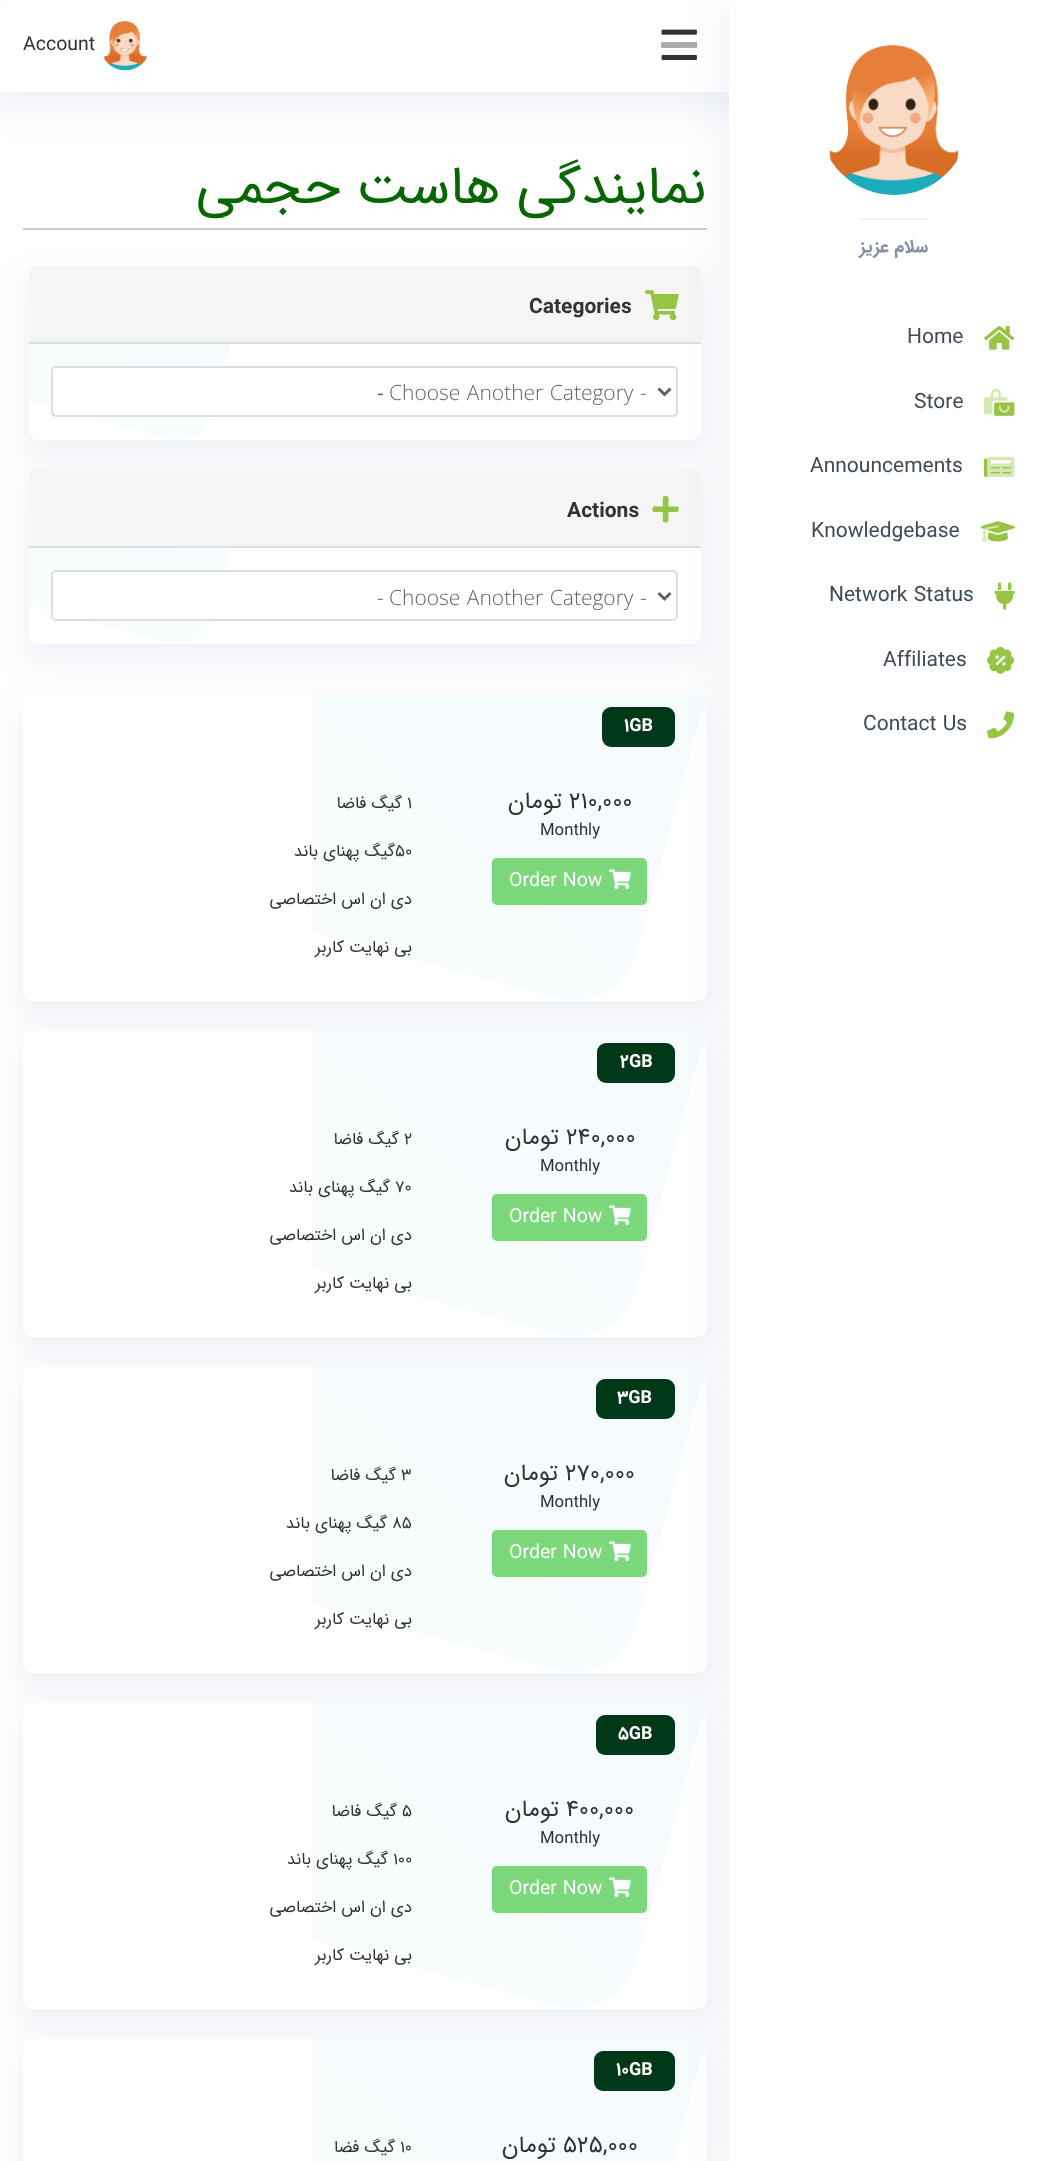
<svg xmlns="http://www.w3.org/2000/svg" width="1058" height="2161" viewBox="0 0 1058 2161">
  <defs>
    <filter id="blur1" x="-50%" y="-200%" width="200%" height="500%"><feGaussianBlur stdDeviation="15"/></filter>
    <filter id="blur2" x="-50%" y="-200%" width="200%" height="500%"><feGaussianBlur stdDeviation="22.5"/></filter>
  </defs>
  <rect width="100%" height="100%" fill="#ffffff"/>
  <rect x="-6" y="9" width="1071" height="104" rx="14" fill="#6982af" fill-opacity="0.1" filter="url(#blur1)"/>
  <path d="M8 0H1051C1055.5 0 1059 3.5 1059 8V92H0V8C0 3.5 3.5 0 8 0Z" fill="#ffffff"/>
  <text x="23" y="50" font-family="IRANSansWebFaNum" font-size="19.5" fill="#333333">Account</text>
  <image x="103" y="21" width="44" height="50" href="img1.png"/>
  <image x="661" y="29" width="36" height="31" href="img2.png"/>
  <rect x="661" y="42" width="36" height="6" fill="#adadad"/>
  <rect x="23" y="228" width="684" height="2" fill="#cccccc"/>
  <text x="706" y="203" font-family="IRANSansWebFaNum" font-size="54" direction="rtl" fill="#066600">نمایندگی هاست حجمی</text>
  <rect x="23" y="275" width="684" height="186" rx="15" fill="#6982af" fill-opacity="0.1" filter="url(#blur1)"/>
  <rect x="29" y="266" width="672" height="174" rx="9" fill="#ffffff"/>
  <image x="29" y="266" width="202" height="173" href="img3.png"/>
  <path d="M38 266H692C697 266 701 270 701 275V344H29V275C29 270 33 266 38 266Z" fill="#f5f5f5"/>
  <rect x="29" y="342" width="672" height="2" fill="#dddddd"/>
  <text x="529" y="313" font-family="IRANSansWebFaNum" font-size="21" font-weight="bold" fill="#333333">Categories</text>
  <image x="645" y="290" width="34" height="31" href="img4.png"/>
  <rect x="52" y="367" width="625" height="49" rx="4" fill="#ffffff" stroke="#dddddd" stroke-width="2"/>
  <path d="M658.5 388.5L664.5 394.5L670.5 388.5" fill="none" stroke="#626262" stroke-width="3"/>
  <text x="377" y="400" font-family="Open Sans" font-size="21" fill="#626262">-</text>
  <text x="389" y="400" word-spacing="1" font-family="Open Sans" font-size="21" font-weight="300" fill="#626262">Choose Another Category</text>
  <text x="640" y="400" font-family="Open Sans" font-size="21" font-weight="300" fill="#626262">-</text>
  <rect x="23" y="479" width="684" height="186" rx="15" fill="#6982af" fill-opacity="0.1" filter="url(#blur1)"/>
  <rect x="29" y="470" width="672" height="174" rx="9" fill="#ffffff"/>
  <image x="29" y="470" width="202" height="173" href="img5.png"/>
  <path d="M38 470H692C697 470 701 474 701 479V548H29V479C29 474 33 470 38 470Z" fill="#f5f5f5"/>
  <rect x="29" y="546" width="672" height="2" fill="#dddddd"/>
  <text x="567" y="517" font-family="IRANSansWebFaNum" font-size="21" font-weight="bold" fill="#333333">Actions</text>
  <image x="652" y="496" width="27" height="27" href="img6.png"/>
  <rect x="52" y="571" width="625" height="49" rx="4" fill="#ffffff" stroke="#dddddd" stroke-width="2"/>
  <path d="M658.5 593L664.5 599L670.5 593" fill="none" stroke="#626262" stroke-width="3"/>
  <text x="377" y="605" font-family="Open Sans" font-size="21" font-weight="300" fill="#626262">-</text>
  <text x="389" y="605" word-spacing="1" font-family="Open Sans" font-size="21" font-weight="300" fill="#626262">Choose Another Category</text>
  <text x="640" y="605" font-family="Open Sans" font-size="21" font-weight="300" fill="#626262">-</text>
  <rect x="17" y="704" width="696" height="318" rx="15" fill="#6982af" fill-opacity="0.1" filter="url(#blur1)"/>
  <rect x="23" y="695" width="684" height="306" rx="9" fill="#ffffff"/>
  <image x="312" y="695" width="393" height="305" href="img7.png"/>
  <rect x="602" y="707" width="73" height="40" rx="9" fill="#003819"/>
  <text x="624" y="731" font-family="IRANSansWebFaNum" font-size="18" font-weight="bold" fill="#ffffff">1GB</text>
  <text x="402" y="808" font-family="IRANSansWebFaNum" font-size="16.75" direction="rtl" fill="#333333">گیگ فاضا</text>
  <text x="407" y="808" font-family="IRANSansWebFaNum" font-size="16.75" fill="#333333">1</text>
  <text x="395" y="856" font-family="IRANSansWebFaNum" font-size="16.75" direction="rtl" fill="#333333">گیگ پهنای باند</text>
  <text x="395" y="856" font-family="IRANSansWebFaNum" font-size="16.75" fill="#333333">50</text>
  <text x="412" y="904" font-family="IRANSansWebFaNum" font-size="16.75" direction="rtl" fill="#333333">دی ان اس اختصاصی</text>
  <text x="412" y="952" font-family="IRANSansWebFaNum" font-size="16.75" direction="rtl" fill="#333333">بی نهایت کاربر</text>
  <text x="562" y="808" font-family="IRANSansWebFaNum" font-size="23.5" direction="rtl" fill="#333333">تومان</text>
  <text x="569" y="808" font-family="IRANSansWebFaNum" font-size="23.5" fill="#333333">210,000</text>
  <text x="540" y="835" font-family="IRANSansWebFaNum" font-size="16.75" fill="#333333">Monthly</text>
  <rect x="493" y="859" width="153" height="45" rx="4" fill="#7bd97b" stroke="#7bd97b" stroke-width="2"/>
  <text x="509" y="886" font-family="IRANSansWebFaNum" font-size="19.5" fill="#ffffff">Order Now</text>
  <image x="609" y="869" width="22" height="20" href="img8.png"/>
  <rect x="17" y="1040" width="696" height="318" rx="15" fill="#6982af" fill-opacity="0.1" filter="url(#blur1)"/>
  <rect x="23" y="1031" width="684" height="306" rx="9" fill="#ffffff"/>
  <image x="312" y="1031" width="393" height="305" href="img9.png"/>
  <rect x="597" y="1043" width="78" height="40" rx="9" fill="#003819"/>
  <text x="620" y="1067" font-family="IRANSansWebFaNum" font-size="18" font-weight="bold" fill="#ffffff">2GB</text>
  <text x="399" y="1144" font-family="IRANSansWebFaNum" font-size="16.75" direction="rtl" fill="#333333">گیگ فاضا</text>
  <text x="404" y="1144" font-family="IRANSansWebFaNum" font-size="16.75" fill="#333333">2</text>
  <text x="390" y="1192" font-family="IRANSansWebFaNum" font-size="16.75" direction="rtl" fill="#333333">گیگ پهنای باند</text>
  <text x="395" y="1192" font-family="IRANSansWebFaNum" font-size="16.75" fill="#333333">70</text>
  <text x="412" y="1240" font-family="IRANSansWebFaNum" font-size="16.75" direction="rtl" fill="#333333">دی ان اس اختصاصی</text>
  <text x="412" y="1288" font-family="IRANSansWebFaNum" font-size="16.75" direction="rtl" fill="#333333">بی نهایت کاربر</text>
  <text x="559" y="1144" font-family="IRANSansWebFaNum" font-size="23.5" direction="rtl" fill="#333333">تومان</text>
  <text x="566" y="1144" font-family="IRANSansWebFaNum" font-size="23.5" fill="#333333">240,000</text>
  <text x="540" y="1171" font-family="IRANSansWebFaNum" font-size="16.75" fill="#333333">Monthly</text>
  <rect x="493" y="1195" width="153" height="45" rx="4" fill="#7bd97b" stroke="#7bd97b" stroke-width="2"/>
  <text x="509" y="1222" font-family="IRANSansWebFaNum" font-size="19.5" fill="#ffffff">Order Now</text>
  <image x="609" y="1205" width="22" height="20" href="img8.png"/>
  <rect x="17" y="1376" width="696" height="318" rx="15" fill="#6982af" fill-opacity="0.1" filter="url(#blur1)"/>
  <rect x="23" y="1367" width="684" height="306" rx="9" fill="#ffffff"/>
  <image x="312" y="1367" width="393" height="305" href="img9.png"/>
  <rect x="596" y="1379" width="79" height="40" rx="9" fill="#003819"/>
  <text x="617" y="1403" font-family="IRANSansWebFaNum" font-size="18" font-weight="bold" fill="#ffffff">3GB</text>
  <text x="396" y="1480" font-family="IRANSansWebFaNum" font-size="16.75" direction="rtl" fill="#333333">گیگ فاضا</text>
  <text x="401" y="1480" font-family="IRANSansWebFaNum" font-size="16.75" fill="#333333">3</text>
  <text x="387" y="1528" font-family="IRANSansWebFaNum" font-size="16.75" direction="rtl" fill="#333333">گیگ پهنای باند</text>
  <text x="392" y="1528" font-family="IRANSansWebFaNum" font-size="16.75" fill="#333333">85</text>
  <text x="412" y="1576" font-family="IRANSansWebFaNum" font-size="16.75" direction="rtl" fill="#333333">دی ان اس اختصاصی</text>
  <text x="412" y="1624" font-family="IRANSansWebFaNum" font-size="16.75" direction="rtl" fill="#333333">بی نهایت کاربر</text>
  <text x="558" y="1480" font-family="IRANSansWebFaNum" font-size="23.5" direction="rtl" fill="#333333">تومان</text>
  <text x="565" y="1480" font-family="IRANSansWebFaNum" font-size="23.5" fill="#333333">270,000</text>
  <text x="540" y="1507" font-family="IRANSansWebFaNum" font-size="16.75" fill="#333333">Monthly</text>
  <rect x="493" y="1531" width="153" height="45" rx="4" fill="#7bd97b" stroke="#7bd97b" stroke-width="2"/>
  <text x="509" y="1558" font-family="IRANSansWebFaNum" font-size="19.5" fill="#ffffff">Order Now</text>
  <image x="609" y="1541" width="22" height="20" href="img8.png"/>
  <rect x="17" y="1712" width="696" height="318" rx="15" fill="#6982af" fill-opacity="0.1" filter="url(#blur1)"/>
  <rect x="23" y="1703" width="684" height="306" rx="9" fill="#ffffff"/>
  <image x="312" y="1703" width="393" height="305" href="img9.png"/>
  <rect x="596" y="1715" width="79" height="40" rx="9" fill="#003819"/>
  <text x="618" y="1739" font-family="IRANSansWebFaNum" font-size="18" font-weight="bold" fill="#ffffff">5GB</text>
  <text x="397" y="1816" font-family="IRANSansWebFaNum" font-size="16.75" direction="rtl" fill="#333333">گیگ فاضا</text>
  <text x="402" y="1816" font-family="IRANSansWebFaNum" font-size="16.75" fill="#333333">5</text>
  <text x="388" y="1864" font-family="IRANSansWebFaNum" font-size="16.75" direction="rtl" fill="#333333">گیگ پهنای باند</text>
  <text x="393" y="1864" font-family="IRANSansWebFaNum" font-size="16.75" fill="#333333">100</text>
  <text x="412" y="1912" font-family="IRANSansWebFaNum" font-size="16.75" direction="rtl" fill="#333333">دی ان اس اختصاصی</text>
  <text x="412" y="1960" font-family="IRANSansWebFaNum" font-size="16.75" direction="rtl" fill="#333333">بی نهایت کاربر</text>
  <text x="559" y="1816" font-family="IRANSansWebFaNum" font-size="23.5" direction="rtl" fill="#333333">تومان</text>
  <text x="566" y="1816" font-family="IRANSansWebFaNum" font-size="23.5" fill="#333333">400,000</text>
  <text x="540" y="1843" font-family="IRANSansWebFaNum" font-size="16.75" fill="#333333">Monthly</text>
  <rect x="493" y="1867" width="153" height="45" rx="4" fill="#7bd97b" stroke="#7bd97b" stroke-width="2"/>
  <text x="509" y="1894" font-family="IRANSansWebFaNum" font-size="19.5" fill="#ffffff">Order Now</text>
  <image x="609" y="1877" width="22" height="20" href="img8.png"/>
  <rect x="17" y="2048" width="696" height="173" rx="15" fill="#6982af" fill-opacity="0.1" filter="url(#blur1)"/>
  <rect x="23" y="2039" width="684" height="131" rx="9" fill="#ffffff"/>
  <image x="312" y="2039" width="393" height="122" href="img10.png"/>
  <rect x="594" y="2051" width="81" height="40" rx="9" fill="#003819"/>
  <text x="616" y="2075" font-family="IRANSansWebFaNum" font-size="18" font-weight="bold" fill="#ffffff">10GB</text>
  <text x="395" y="2152" font-family="IRANSansWebFaNum" font-size="16.75" direction="rtl" fill="#333333">گیگ فضا</text>
  <text x="400" y="2152" font-family="IRANSansWebFaNum" font-size="16.75" fill="#333333">10</text>
  <text x="556" y="2152" font-family="IRANSansWebFaNum" font-size="23.5" direction="rtl" fill="#333333">تومان</text>
  <text x="563" y="2152" font-family="IRANSansWebFaNum" font-size="23.5" fill="#333333">525,000</text>
  <rect x="729" y="0" width="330" height="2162" fill="#4565ad" fill-opacity="0.1" filter="url(#blur2)"/>
  <rect x="729" y="0" width="329" height="2161" fill="#ffffff"/>
  <image x="829" y="45" width="130" height="150" href="img11.png"/>
  <rect x="860" y="218" width="69" height="2" fill="#f2f2f2"/>
  <text x="928" y="252" font-family="IRANSansWebFaNum" font-size="18" font-weight="bold" direction="rtl" fill="#878fa7">سلام عزیز</text>
  <text x="907" y="343" font-family="IRANSansWebFaNum" font-size="21" fill="#3e4b5b">Home</text>
  <image x="984" y="326" width="31" height="24" href="img12.png"/>
  <text x="914" y="408" font-family="IRANSansWebFaNum" font-size="21" fill="#3e4b5b">Store</text>
  <image x="994" y="402" width="21" height="14" href="img14.png"/>
  <image x="984" y="388" width="26" height="27" href="img13.png"/>
  <text x="810" y="472" font-family="IRANSansWebFaNum" font-size="21" fill="#3e4b5b">Announcements</text>
  <image x="984" y="458" width="27" height="19" href="img16.png"/>
  <image x="986" y="456" width="29" height="21" href="img15.png"/>
  <text x="811" y="537" font-family="IRANSansWebFaNum" font-size="21" fill="#3e4b5b">Knowledgebase</text>
  <image x="981" y="521" width="34" height="21" href="img17.png"/>
  <image x="982" y="525" width="17" height="17" href="img18.png"/>
  <text x="829" y="601" font-family="IRANSansWebFaNum" font-size="21" fill="#3e4b5b">Network Status</text>
  <image x="994" y="582" width="21" height="28" href="img19.png"/>
  <text x="883" y="666" font-family="IRANSansWebFaNum" font-size="21" fill="#3e4b5b">Affiliates</text>
  <image x="987" y="646" width="27" height="28" href="img20.png"/>
  <text x="863" y="730" font-family="IRANSansWebFaNum" font-size="21" fill="#3e4b5b">Contact Us</text>
  <image x="987" y="711" width="28" height="28" href="img21.png"/>
</svg>
